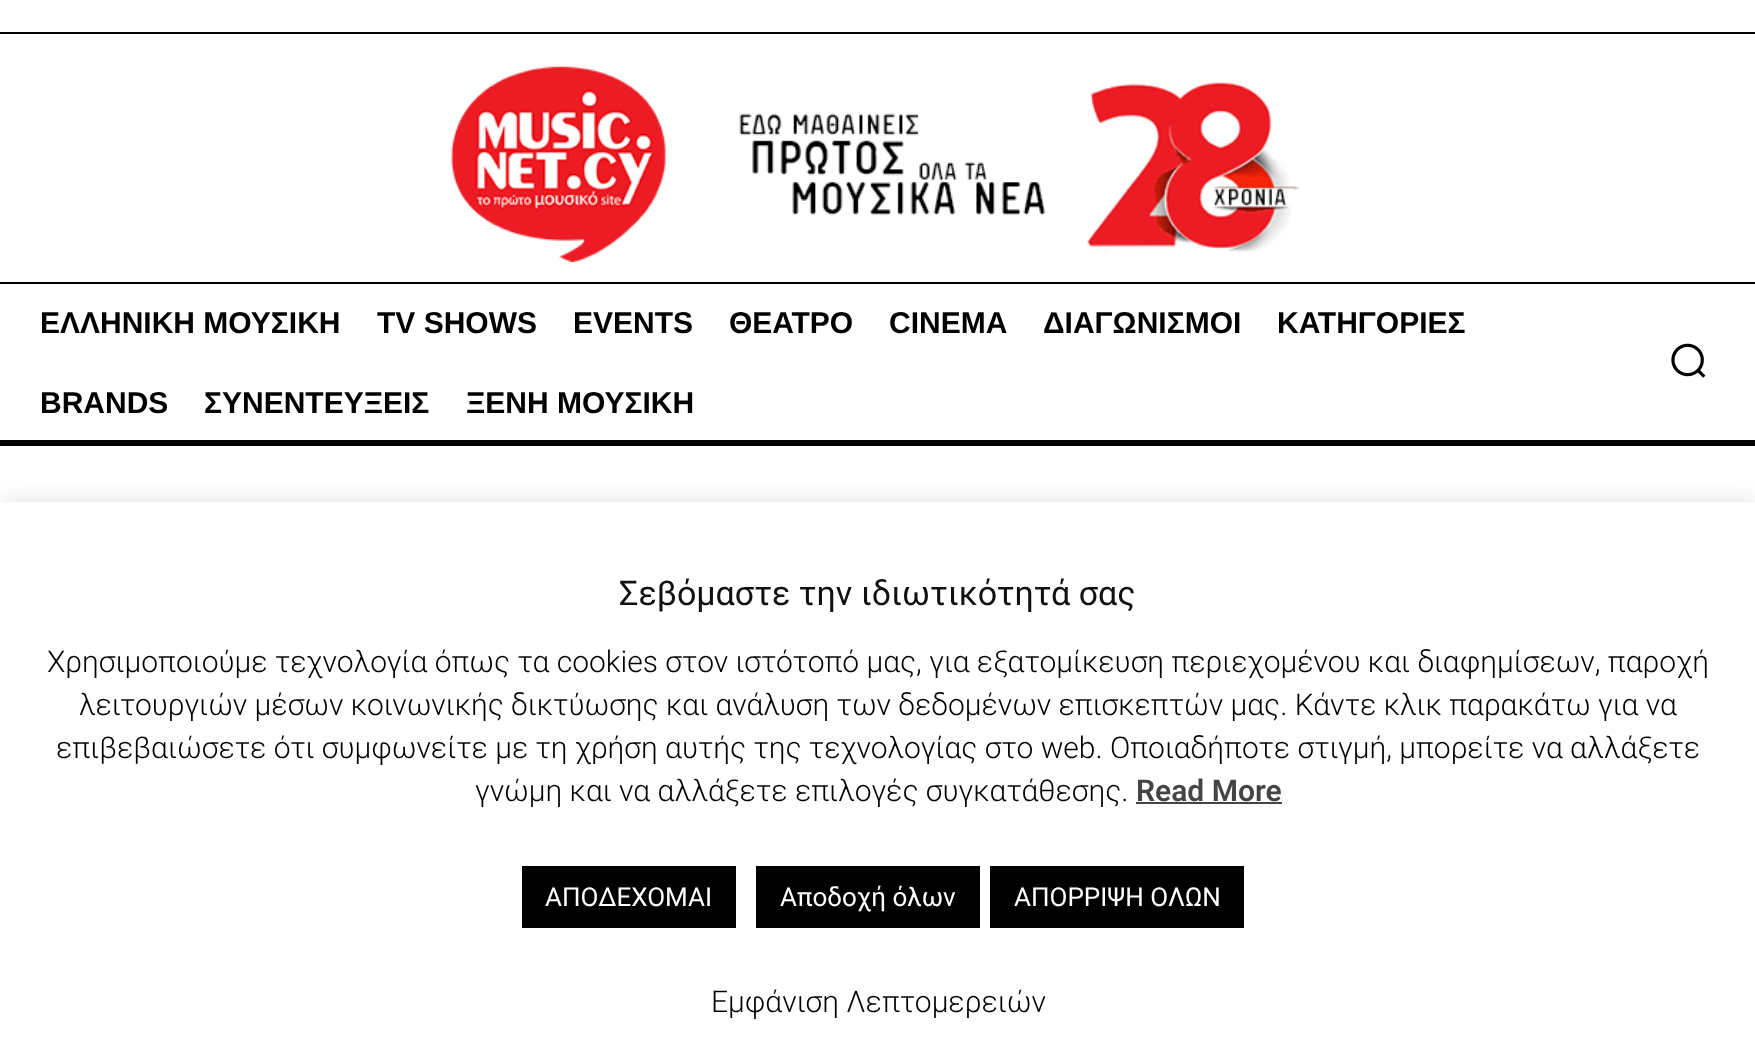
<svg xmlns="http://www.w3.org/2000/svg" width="1755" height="1047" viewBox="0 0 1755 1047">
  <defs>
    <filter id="blur1" x="-50%" y="-200%" width="200%" height="500%"><feGaussianBlur stdDeviation="10"/></filter>
  </defs>
  <rect width="100%" height="100%" fill="#ffffff"/>
  <rect x="0" y="32" width="1755" height="2" fill="#000000"/>
  <image x="451" y="66" width="848" height="196" href="img1.png"/>
  <rect x="0" y="282" width="1755" height="2" fill="#000000"/>
  <rect x="0" y="440" width="1755" height="6" fill="#000000"/>
  <text x="40" y="333" font-family="Liberation Sans" font-size="30" font-weight="bold" fill="#000000">ΕΛΛΗΝΙΚΗ ΜΟΥΣΙΚΗ</text>
  <text x="377" y="333" font-family="Liberation Sans" font-size="30" font-weight="bold" fill="#000000">TV SHOWS</text>
  <text x="573" y="333" font-family="Liberation Sans" font-size="30" font-weight="bold" fill="#000000">EVENTS</text>
  <text x="729" y="333" font-family="Liberation Sans" font-size="30" font-weight="bold" fill="#000000">ΘΕΑΤΡΟ</text>
  <text x="889" y="333" font-family="Liberation Sans" font-size="30" font-weight="bold" fill="#000000">CINEMA</text>
  <text x="1043" y="333" font-family="Liberation Sans" font-size="30" font-weight="bold" fill="#000000">ΔΙΑΓΩΝΙΣΜΟΙ</text>
  <text x="1277" y="333" font-family="Liberation Sans" font-size="30" font-weight="bold" fill="#000000">ΚΑΤΗΓΟΡΙΕΣ</text>
  <text x="40" y="413" font-family="Liberation Sans" font-size="30" font-weight="bold" fill="#000000">BRANDS</text>
  <text x="204" y="413" font-family="Liberation Sans" font-size="30" font-weight="bold" fill="#000000">ΣΥΝΕΝΤΕΥΞΕΙΣ</text>
  <text x="466" y="413" font-family="Liberation Sans" font-size="30" font-weight="bold" fill="#000000">ΞΕΝΗ ΜΟΥΣΙΚΗ</text>
  <image x="1671" y="343" width="35" height="35" href="img2.png"/>
  <rect x="0" y="500" width="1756" height="546" fill="#acabab" fill-opacity="0.3" filter="url(#blur1)"/>
  <rect x="0" y="502" width="1755" height="545" fill="#ffffff"/>
  <text x="619" y="605" font-family="Roboto" font-size="34" fill="#111111">Σεβόμαστε την ιδιωτικότητά σας</text>
  <text x="47" y="672" font-family="Roboto" font-size="30" font-weight="300" fill="#000000">Χρησιμοποιούμε τεχνολογία όπως τα cookies στον ιστότοπό μας, για εξατομίκευση περιεχομένου και διαφημίσεων, παροχή</text>
  <text x="79" y="715" font-family="Roboto" font-size="30" font-weight="300" fill="#000000">λειτουργιών μέσων κοινωνικής δικτύωσης και ανάλυση των δεδομένων επισκεπτών μας. Κάντε κλικ παρακάτω για να</text>
  <text x="56" y="758" font-family="Roboto" font-size="30" font-weight="300" fill="#000000">επιβεβαιώσετε ότι συμφωνείτε με τη χρήση αυτής της τεχνολογίας στο web. Οποιαδήποτε στιγμή, μπορείτε να αλλάξετε</text>
  <text x="475" y="801" font-family="Roboto" font-size="30" font-weight="300" fill="#000000">γνώμη και να αλλάξετε επιλογές συγκατάθεσης.</text>
  <text x="1136" y="801" font-family="Roboto" font-size="30" font-weight="600" fill="#444444">Read More</text>
  <rect x="1136" y="802" width="146" height="2" fill="#444444"/>
  <rect x="522" y="866" width="214" height="62" fill="#000000"/>
  <text x="545" y="906" font-family="Roboto" font-size="26" fill="#ffffff">ΑΠΟΔΕΧΟΜΑΙ</text>
  <rect x="756" y="866" width="224" height="62" fill="#000000"/>
  <text x="780" y="906" font-family="Roboto" font-size="26" fill="#ffffff">Αποδοχή όλων</text>
  <rect x="990" y="866" width="254" height="62" fill="#000000"/>
  <text x="1014" y="906" font-family="Roboto" font-size="26" fill="#ffffff">ΑΠΟΡΡΙΨΗ ΟΛΩΝ</text>
  <text x="711" y="1012" font-family="Roboto" font-size="30" font-weight="300" fill="#000000">Εμφάνιση Λεπτομερειών</text>
</svg>
